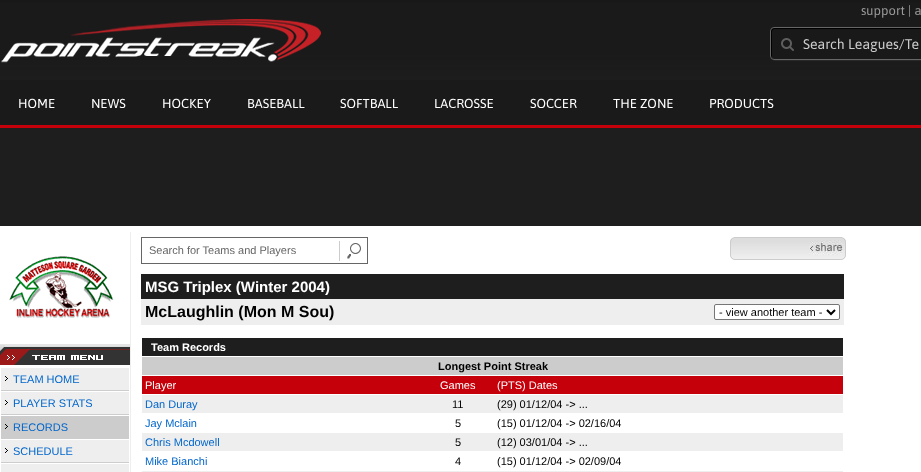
<svg xmlns="http://www.w3.org/2000/svg" width="921" height="472" viewBox="0 0 921 472">
  <rect width="100%" height="100%" fill="#ffffff"/>
  <image x="0" y="0" width="921" height="80" href="img1.png"/>
  <rect x="0" y="125" width="921" height="3" fill="#c6000a"/>
  <image x="1" y="19" width="320" height="44" href="img2.png"/>
  <text x="861" y="15" font-family="Asap" font-size="13" fill="#999999">support | a</text>
  <path d="M772 59C772 60 774 61 775 61H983C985 61 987 59 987 57V32C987 31 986 29 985 29L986 31V56C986 58 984 60 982 60H774Z" fill="#272827"/>
  <path d="M774 27H921V60H774C772 60 770 58 770 56V31C770 29 772 27 774 27Z" fill="#191919"/>
  <image x="781" y="38" width="13" height="13" href="img3.png"/>
  <path d="M775 29H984L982 28H774C770 28 771 33 771 35V44C771 46 770 57 772 58V36C772 34 771 29 775 29Z" fill="#000000"/>
  <rect x="770.5" y="27.5" width="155" height="32" rx="3.5" fill="none" stroke="#666666"/>
  <text x="803" y="49" font-family="Asap" font-size="14" fill="#cccccc">Search Leagues/Te</text>
  <rect x="0" y="80" width="921" height="45" fill="#1a1a1a"/>
  <text x="18" y="108" font-family="Asap" font-size="13" fill="#ffffff">HOME</text>
  <text x="91" y="108" font-family="Asap" font-size="13" fill="#ffffff">NEWS</text>
  <text x="162" y="108" font-family="Asap" font-size="13" fill="#ffffff">HOCKEY</text>
  <text x="247" y="108" font-family="Asap" font-size="13" fill="#ffffff">BASEBALL</text>
  <text x="340" y="108" font-family="Asap" font-size="13" fill="#ffffff">SOFTBALL</text>
  <text x="434" y="108" font-family="Asap" font-size="13" fill="#ffffff">LACROSSE</text>
  <text x="530" y="108" font-family="Asap" font-size="13" fill="#ffffff">SOCCER</text>
  <text x="613" y="108" font-family="Asap" font-size="13" fill="#ffffff">THE ZONE</text>
  <text x="709" y="108" font-family="Asap" font-size="13" fill="#ffffff">PRODUCTS</text>
  <rect x="0" y="128" width="921" height="98" fill="#1e1e1e"/>
  <rect x="130" y="232" width="1" height="240" fill="#eeeeee"/>
  <image x="9" y="256" width="105" height="62" href="img4.png"/>
  <image x="0" y="344" width="130" height="21" href="img5.png"/>
  <rect x="1" y="368" width="128" height="22" fill="#eeeeee"/>
  <rect x="1" y="390" width="128" height="1" fill="#cccccc"/>
  <image x="5" y="376" width="3" height="5" href="img6.png"/>
  <text x="13" y="383" font-family="Liberation Sans" font-size="11" fill="#0066cc">TEAM HOME</text>
  <rect x="1" y="392" width="128" height="22" fill="#eeeeee"/>
  <rect x="1" y="414" width="128" height="1" fill="#cccccc"/>
  <image x="5" y="400" width="3" height="5" href="img6.png"/>
  <text x="13" y="407" font-family="Liberation Sans" font-size="11" fill="#0066cc">PLAYER STATS</text>
  <rect x="1" y="416" width="128" height="23" fill="#cccccc"/>
  <image x="5" y="424" width="3" height="5" href="img7.png"/>
  <text x="13" y="431" font-family="Liberation Sans" font-size="11" fill="#0066cc">RECORDS</text>
  <rect x="1" y="440" width="128" height="22" fill="#eeeeee"/>
  <rect x="1" y="462" width="128" height="1" fill="#cccccc"/>
  <image x="5" y="448" width="3" height="5" href="img6.png"/>
  <text x="13" y="455" font-family="Liberation Sans" font-size="11" fill="#0066cc">SCHEDULE</text>
  <rect x="1" y="464" width="128" height="8" fill="#eeeeee"/>
  <rect x="141.5" y="237.5" width="198" height="26" fill="none" stroke="#666666"/>
  <text x="149" y="254" font-family="Liberation Sans" font-size="11" fill="#666666">Search for Teams and Players</text>
  <image x="339" y="237" width="29" height="27" href="img8.png"/>
  <image x="730" y="238" width="116" height="22" href="img9.png"/>
  <rect x="730.5" y="237.5" width="115" height="22" rx="4.5" fill="none" stroke="#cccccc"/>
  <image x="809" y="240" width="34" height="15" href="img10.png"/>
  <rect x="141" y="274" width="703" height="25" fill="#1e1e1e"/>
  <text x="145" y="292" font-family="Liberation Sans" font-size="15" font-weight="bold" fill="#ffffff">MSG Triplex (Winter 2004)</text>
  <rect x="141" y="299" width="703" height="26" fill="#eeeeee"/>
  <text x="145" y="317" font-family="Liberation Sans" font-size="16" font-weight="bold" fill="#000000">McLaughlin (Mon M Sou)</text>
  <rect x="714.5" y="304.5" width="125" height="15" rx="1.5" fill="#ffffff" stroke="#767676"/>
  <path d="M827 310L831 314L835 310" fill="none" stroke="#000000" stroke-width="2"/>
  <text x="719" y="316" font-family="Liberation Sans" font-size="11" fill="#000000">- view another team -</text>
  <rect x="142" y="338" width="701" height="18" fill="#1e1e1e"/>
  <text x="151" y="351" font-family="Liberation Sans" font-size="11" font-weight="bold" fill="#ffffff">Team Records</text>
  <rect x="142" y="357" width="701" height="18" fill="#cccccc"/>
  <text x="438" y="370" font-family="Liberation Sans" font-size="11" font-weight="bold" fill="#000000">Longest Point Streak</text>
  <rect x="142" y="376" width="701" height="18" fill="#c6000a"/>
  <text x="145" y="389" font-family="Liberation Sans" font-size="11" fill="#ffffff">Player</text>
  <text x="440" y="389" font-family="Liberation Sans" font-size="11" fill="#ffffff">Games</text>
  <text x="497" y="389" font-family="Liberation Sans" font-size="11" fill="#ffffff">(PTS) Dates</text>
  <rect x="142" y="395" width="701" height="18" fill="#eeeeee"/>
  <text x="145" y="408" font-family="Liberation Sans" font-size="11" fill="#0066cc">Dan Duray</text>
  <text x="452" y="408" font-family="Liberation Sans" font-size="11" fill="#000000">11</text>
  <text x="497" y="408" font-family="Liberation Sans" font-size="11" fill="#000000">(29) 01/12/04 -&gt; ...</text>
  <text x="145" y="427" font-family="Liberation Sans" font-size="11" fill="#0066cc">Jay Mclain</text>
  <text x="455" y="427" font-family="Liberation Sans" font-size="11" fill="#000000">5</text>
  <text x="497" y="427" font-family="Liberation Sans" font-size="11" fill="#000000">(15) 01/12/04 -&gt; 02/16/04</text>
  <rect x="142" y="433" width="701" height="18" fill="#eeeeee"/>
  <text x="145" y="446" font-family="Liberation Sans" font-size="11" fill="#0066cc">Chris Mcdowell</text>
  <text x="455" y="446" font-family="Liberation Sans" font-size="11" fill="#000000">5</text>
  <text x="497" y="446" font-family="Liberation Sans" font-size="11" fill="#000000">(12) 03/01/04 -&gt; ...</text>
  <text x="145" y="465" font-family="Liberation Sans" font-size="11" fill="#0066cc">Mike Bianchi</text>
  <text x="455" y="465" font-family="Liberation Sans" font-size="11" fill="#000000">4</text>
  <text x="497" y="465" font-family="Liberation Sans" font-size="11" fill="#000000">(15) 01/12/04 -&gt; 02/09/04</text>
  <rect x="142" y="471" width="701" height="1" fill="#eeeeee"/>
</svg>
